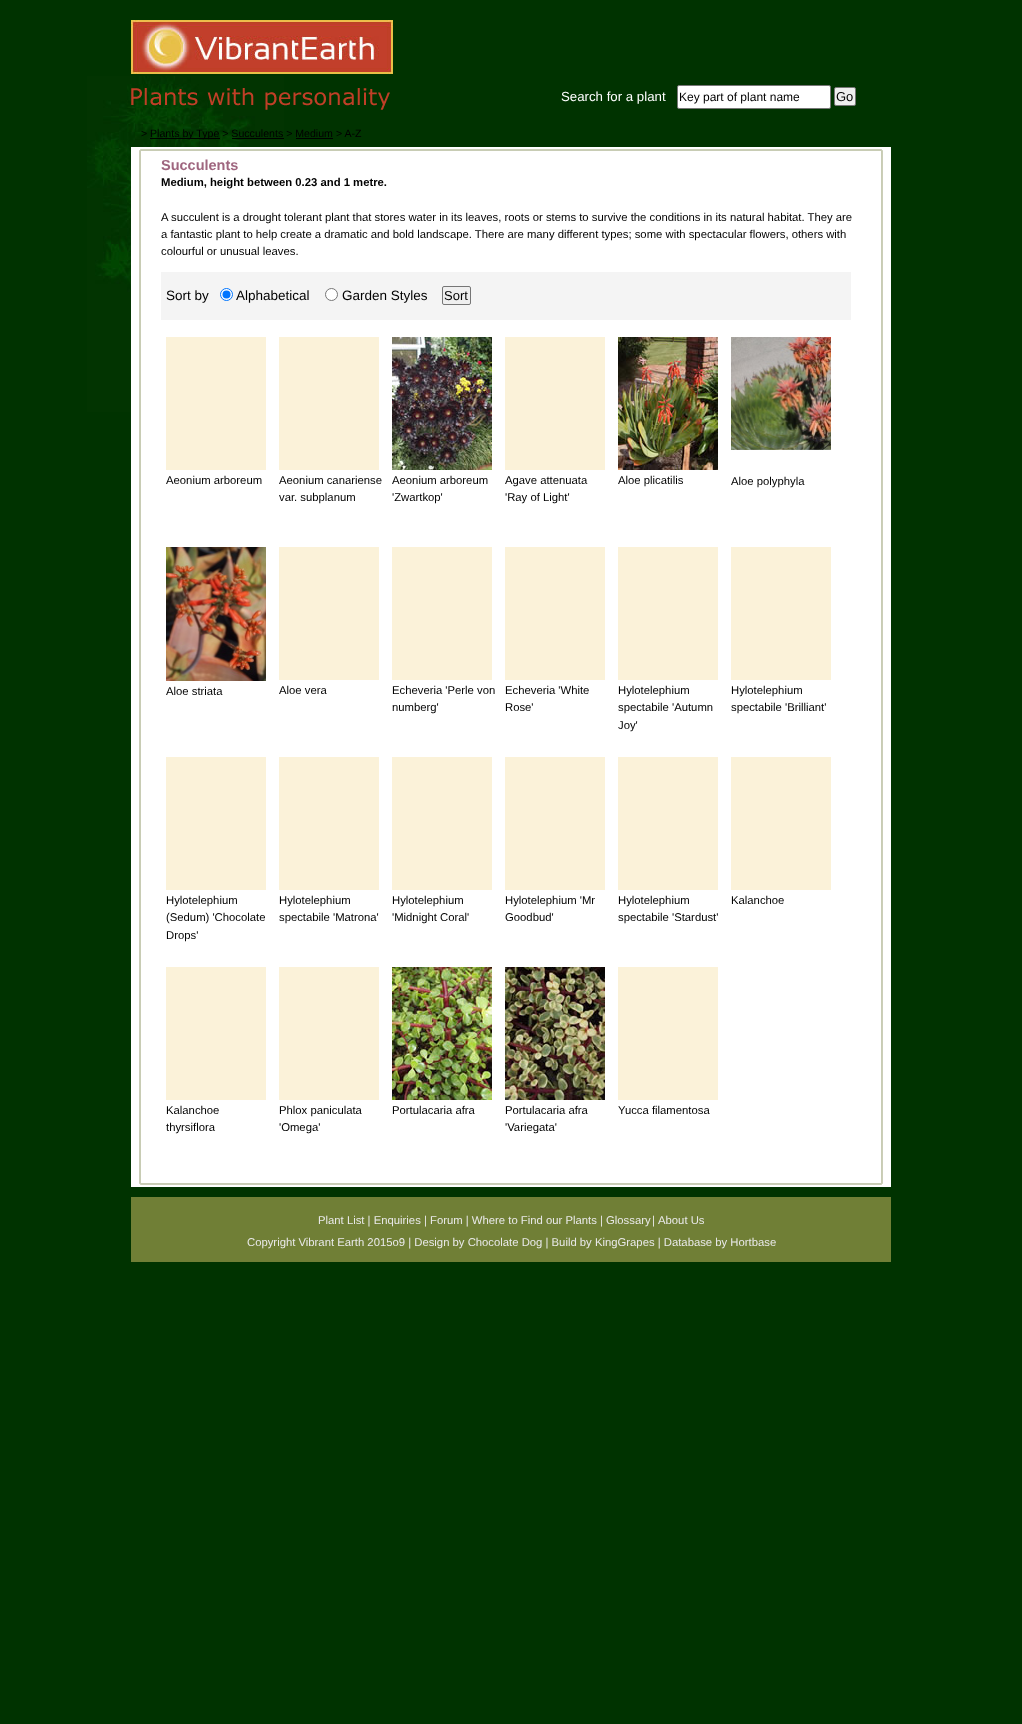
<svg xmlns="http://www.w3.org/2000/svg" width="1022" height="1724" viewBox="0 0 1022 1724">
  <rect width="100%" height="100%" fill="#003300"/>
  <image x="87" y="76" width="197" height="336" href="img1.png"/>
  <image x="131" y="20" width="262" height="54" href="img2.png"/>
  <image x="131" y="88" width="259" height="22" href="img3.png"/>
  <text x="561" y="101" font-family="Liberation Sans" font-size="13.25" fill="#ffffff">Search for a plant</text>
  <rect x="677.5" y="85.5" width="153" height="23" rx="1.5" fill="#ffffff" stroke="#767676"/>
  <text x="679" y="101" font-family="Liberation Sans" font-size="12" fill="#000000">Key part of plant name</text>
  <rect x="834.5" y="87.5" width="21" height="18" rx="1.5" fill="#efefef" stroke="#767676"/>
  <text x="836" y="101" font-family="Liberation Sans" font-size="13" fill="#000000">Go</text>
  <text x="141" y="137" font-family="Liberation Sans" font-size="10.6" fill="#000000">&gt;</text>
  <rect x="150" y="138" width="70" height="1" fill="#000000"/>
  <text x="150" y="137" font-family="Liberation Sans" font-size="10.6" fill="#000000">Plants by Type &gt; Succulents &gt; Medium &gt; A-Z</text>
  <rect x="232" y="138" width="52" height="1" fill="#000000"/>
  <rect x="296" y="138" width="37" height="1" fill="#000000"/>
  <image x="131" y="147" width="760" height="1040" href="img4.png"/>
  <image x="139" y="147" width="744" height="4" href="img5.png"/>
  <text x="161" y="170" font-family="Liberation Sans" font-size="14.5" font-weight="bold" fill="#9f667f">Succulents</text>
  <text x="161" y="186" font-family="Liberation Sans" font-size="11.3" font-weight="bold" fill="#000000">Medium, height between 0.23 and 1 metre.</text>
  <text x="161" y="221" font-family="Liberation Sans" font-size="11.3" fill="#000000">A succulent is a drought tolerant plant that stores water in its leaves, roots or stems to survive the conditions in its natural habitat. They are</text>
  <text x="161" y="238" font-family="Liberation Sans" font-size="11.3" fill="#000000">a fantastic plant to help create a dramatic and bold landscape. There are many different types; some with spectacular flowers, others with</text>
  <text x="161" y="255" font-family="Liberation Sans" font-size="11.3" fill="#000000">colourful or unusual leaves.</text>
  <rect x="161" y="272" width="690" height="48" fill="#f4f4f4"/>
  <text x="166" y="300" font-family="Liberation Sans" font-size="13.5" fill="#000000">Sort by</text>
  <circle cx="226.5" cy="294.5" r="6" fill="#ffffff" stroke="#0075ff"/>
  <circle cx="226.5" cy="294.5" r="4" fill="#0075ff"/>
  <text x="236" y="300" font-family="Liberation Sans" font-size="13.5" fill="#000000">Alphabetical</text>
  <circle cx="331.5" cy="294.5" r="6" fill="#ffffff" stroke="#767676"/>
  <text x="342" y="300" font-family="Liberation Sans" font-size="13.5" fill="#000000">Garden Styles</text>
  <rect x="442.5" y="286.5" width="28" height="18" rx="1.5" fill="#efefef" stroke="#767676"/>
  <text x="444" y="300" font-family="Liberation Sans" font-size="13" fill="#000000">Sort</text>
  <rect x="166" y="337" width="100" height="133" fill="#fbf2d9"/>
  <text x="166" y="484" font-family="Liberation Sans" font-size="11.3" fill="#000000">Aeonium arboreum</text>
  <rect x="279" y="337" width="100" height="133" fill="#fbf2d9"/>
  <text x="279" y="484" font-family="Liberation Sans" font-size="11.3" fill="#000000">Aeonium canariense</text>
  <text x="279" y="501" font-family="Liberation Sans" font-size="11.3" fill="#000000">var. subplanum</text>
  <image x="392" y="337" width="100" height="133" href="img6.png"/>
  <text x="392" y="484" font-family="Liberation Sans" font-size="11.3" fill="#000000">Aeonium arboreum</text>
  <text x="392" y="501" font-family="Liberation Sans" font-size="11.3" fill="#000000">'Zwartkop'</text>
  <rect x="505" y="337" width="100" height="133" fill="#fbf2d9"/>
  <text x="505" y="484" font-family="Liberation Sans" font-size="11.3" fill="#000000">Agave attenuata</text>
  <text x="505" y="501" font-family="Liberation Sans" font-size="11.3" fill="#000000">'Ray of Light'</text>
  <image x="618" y="337" width="100" height="133" href="img7.png"/>
  <text x="618" y="484" font-family="Liberation Sans" font-size="11.3" fill="#000000">Aloe plicatilis</text>
  <image x="731" y="337" width="100" height="113" href="img8.png"/>
  <text x="731" y="485" font-family="Liberation Sans" font-size="11.3" fill="#000000">Aloe polyphyla</text>
  <image x="166" y="547" width="100" height="134" href="img9.png"/>
  <text x="166" y="695" font-family="Liberation Sans" font-size="11.3" fill="#000000">Aloe striata</text>
  <rect x="279" y="547" width="100" height="133" fill="#fbf2d9"/>
  <text x="279" y="694" font-family="Liberation Sans" font-size="11.3" fill="#000000">Aloe vera</text>
  <rect x="392" y="547" width="100" height="133" fill="#fbf2d9"/>
  <text x="392" y="694" font-family="Liberation Sans" font-size="11.3" fill="#000000">Echeveria 'Perle von</text>
  <text x="392" y="711" font-family="Liberation Sans" font-size="11.3" fill="#000000">numberg'</text>
  <rect x="505" y="547" width="100" height="133" fill="#fbf2d9"/>
  <text x="505" y="694" font-family="Liberation Sans" font-size="11.3" fill="#000000">Echeveria 'White</text>
  <text x="505" y="711" font-family="Liberation Sans" font-size="11.3" fill="#000000">Rose'</text>
  <rect x="618" y="547" width="100" height="133" fill="#fbf2d9"/>
  <text x="618" y="694" font-family="Liberation Sans" font-size="11.3" fill="#000000">Hylotelephium</text>
  <text x="618" y="711" font-family="Liberation Sans" font-size="11.3" fill="#000000">spectabile 'Autumn</text>
  <text x="618" y="729" font-family="Liberation Sans" font-size="11.3" fill="#000000">Joy'</text>
  <rect x="731" y="547" width="100" height="133" fill="#fbf2d9"/>
  <text x="731" y="694" font-family="Liberation Sans" font-size="11.3" fill="#000000">Hylotelephium</text>
  <text x="731" y="711" font-family="Liberation Sans" font-size="11.3" fill="#000000">spectabile 'Brilliant'</text>
  <rect x="166" y="757" width="100" height="133" fill="#fbf2d9"/>
  <text x="166" y="904" font-family="Liberation Sans" font-size="11.3" fill="#000000">Hylotelephium</text>
  <text x="166" y="921" font-family="Liberation Sans" font-size="11.3" fill="#000000">(Sedum) 'Chocolate</text>
  <text x="166" y="939" font-family="Liberation Sans" font-size="11.3" fill="#000000">Drops'</text>
  <rect x="279" y="757" width="100" height="133" fill="#fbf2d9"/>
  <text x="279" y="904" font-family="Liberation Sans" font-size="11.3" fill="#000000">Hylotelephium</text>
  <text x="279" y="921" font-family="Liberation Sans" font-size="11.3" fill="#000000">spectabile 'Matrona'</text>
  <rect x="392" y="757" width="100" height="133" fill="#fbf2d9"/>
  <text x="392" y="904" font-family="Liberation Sans" font-size="11.3" fill="#000000">Hylotelephium</text>
  <text x="392" y="921" font-family="Liberation Sans" font-size="11.3" fill="#000000">'Midnight Coral'</text>
  <rect x="505" y="757" width="100" height="133" fill="#fbf2d9"/>
  <text x="505" y="904" font-family="Liberation Sans" font-size="11.3" fill="#000000">Hylotelephium 'Mr</text>
  <text x="505" y="921" font-family="Liberation Sans" font-size="11.3" fill="#000000">Goodbud'</text>
  <rect x="618" y="757" width="100" height="133" fill="#fbf2d9"/>
  <text x="618" y="904" font-family="Liberation Sans" font-size="11.3" fill="#000000">Hylotelephium</text>
  <text x="618" y="921" font-family="Liberation Sans" font-size="11.3" fill="#000000">spectabile 'Stardust'</text>
  <rect x="731" y="757" width="100" height="133" fill="#fbf2d9"/>
  <text x="731" y="904" font-family="Liberation Sans" font-size="11.3" fill="#000000">Kalanchoe</text>
  <rect x="166" y="967" width="100" height="133" fill="#fbf2d9"/>
  <text x="166" y="1114" font-family="Liberation Sans" font-size="11.3" fill="#000000">Kalanchoe</text>
  <text x="166" y="1131" font-family="Liberation Sans" font-size="11.3" fill="#000000">thyrsiflora</text>
  <rect x="279" y="967" width="100" height="133" fill="#fbf2d9"/>
  <text x="279" y="1114" font-family="Liberation Sans" font-size="11.3" fill="#000000">Phlox paniculata</text>
  <text x="279" y="1131" font-family="Liberation Sans" font-size="11.3" fill="#000000">'Omega'</text>
  <image x="392" y="967" width="100" height="133" href="img10.png"/>
  <text x="392" y="1114" font-family="Liberation Sans" font-size="11.3" fill="#000000">Portulacaria afra</text>
  <image x="505" y="967" width="100" height="133" href="img11.png"/>
  <text x="505" y="1114" font-family="Liberation Sans" font-size="11.3" fill="#000000">Portulacaria afra</text>
  <text x="505" y="1131" font-family="Liberation Sans" font-size="11.3" fill="#000000">'Variegata'</text>
  <rect x="618" y="967" width="100" height="133" fill="#fbf2d9"/>
  <text x="618" y="1114" font-family="Liberation Sans" font-size="11.3" fill="#000000">Yucca filamentosa</text>
  <image x="139" y="1183" width="744" height="4" href="img12.png"/>
  <rect x="131" y="1197" width="760" height="65" fill="#707f36"/>
  <text x="318" y="1224" font-family="Liberation Sans" font-size="11.3" fill="#e9e9e9">Plant List | Enquiries | Forum | Where to Find our Plants | Glossary</text>
  <text x="652" y="1224" font-family="Liberation Sans" font-size="11.3" fill="#e9e9e9">|</text>
  <text x="658" y="1224" font-family="Liberation Sans" font-size="11.3" fill="#e9e9e9">About Us</text>
  <text x="247" y="1246" font-family="Liberation Sans" font-size="11.3" fill="#e9e9e9">Copyright Vibrant Earth 2015o9 | Design by Chocolate Dog | Build by KingGrapes | Database by Hortbase</text>
</svg>
